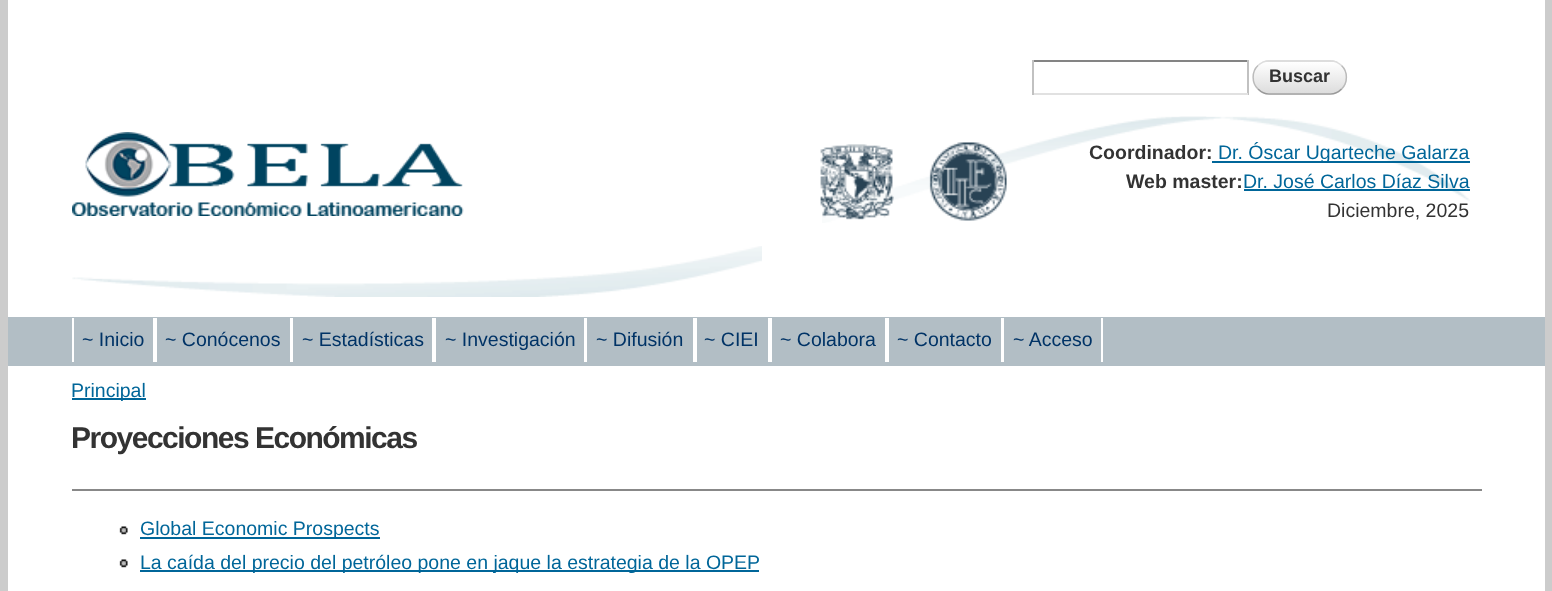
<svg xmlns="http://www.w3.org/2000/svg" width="1552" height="591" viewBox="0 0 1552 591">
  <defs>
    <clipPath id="clip1"><rect x="1253" y="60" width="94" height="35" rx="17"/></clipPath>
    <linearGradient id="g1" gradientUnits="userSpaceOnUse" x1="1254" y1="30" x2="1254" y2="62"><stop offset="0" stop-color="#ffffff"/><stop offset="1" stop-color="#dddddd"/></linearGradient>
    <linearGradient id="g2" gradientUnits="userSpaceOnUse" x1="1254" y1="62" x2="1254" y2="93"><stop offset="0" stop-color="#ffffff"/><stop offset="1" stop-color="#dddddd"/></linearGradient>
  </defs>
  <rect width="100%" height="100%" fill="#cccccc"/>
  <rect x="8" y="0" width="1537" height="317" fill="#ffffff"/>
  <rect x="1032" y="60" width="216" height="2" fill="#848484"/>
  <rect x="1247" y="60" width="2" height="35" fill="#c1c1c1"/>
  <rect x="1032" y="93" width="216" height="2" fill="#e1e1e1"/>
  <rect x="1032" y="60" width="2" height="35" fill="#c1c1c1"/>
  <g clip-path="url(#clip1)">
    <rect x="1262" y="60" width="76" height="2" fill="url(#g1)"/>
    <rect x="1253" y="62" width="94" height="31" fill="url(#g2)"/>
  </g>
  <path d="M1258 65.5C1261 62.5 1265 61 1269 61H1330.5C1334.5 61 1338.5 62.5 1341.5 65.5" fill="none" stroke="#dddddd" stroke-width="1.5"/>
  <path d="M1341.5 65.5C1348 71.5 1348 83 1341.5 89" fill="none" stroke="#bbbbbb" stroke-width="1.5"/>
  <path d="M1341.5 89C1338.5 92 1334.5 94 1330.5 94H1269C1265 94 1261 92 1258 89" fill="none" stroke="#999999" stroke-width="1.5"/>
  <path d="M1258 89C1251.5 83 1251.5 71.5 1258 65.5" fill="none" stroke="#bbbbbb" stroke-width="1.5"/>
  <text x="1269" y="82" font-family="Liberation Sans" font-size="18" font-weight="bold" fill="#333333">Buscar</text>
  <image x="72" y="246" width="690" height="51" href="img1.png"/>
  <image x="72" y="132" width="392" height="84" href="img2.png"/>
  <image x="822" y="116" width="648" height="107" href="img3.png"/>
  <image x="820" y="144" width="74" height="76" href="img4.png"/>
  <image x="929" y="142" width="78" height="79" href="img5.png"/>
  <text x="1089" y="159" font-family="Liberation Sans" font-size="19.5" font-weight="bold" fill="#333333">Coordinador:</text>
  <rect x="1212" y="161" width="258" height="2" fill="#006699"/>
  <text x="1218" y="159" font-family="Liberation Sans" font-size="19.5" fill="#006699">Dr. Óscar Ugarteche Galarza</text>
  <text x="1126" y="188" font-family="Liberation Sans" font-size="19.5" font-weight="bold" fill="#333333">Web master:</text>
  <text x="1243" y="188" font-family="Liberation Sans" font-size="19.5" fill="#006699">Dr. José Carlos Díaz Silva</text>
  <rect x="1244" y="189" width="226" height="2" fill="#006699"/>
  <text x="1327" y="217" font-family="Liberation Sans" font-size="19.5" fill="#333333">Diciembre, 2025</text>
  <rect x="8" y="317" width="1537" height="49" fill="#b2bec5"/>
  <text x="82" y="346" font-family="Liberation Sans" font-size="19.5" fill="#003366">~ Inicio</text>
  <rect x="72" y="318" width="2" height="44" fill="#ffffff"/>
  <text x="165" y="346" font-family="Liberation Sans" font-size="19.5" fill="#003366">~ Conócenos</text>
  <rect x="153" y="318" width="4" height="44" fill="#ffffff"/>
  <text x="302" y="346" font-family="Liberation Sans" font-size="19.5" fill="#003366">~ Estadísticas</text>
  <rect x="290" y="318" width="3" height="44" fill="#ffffff"/>
  <rect x="432" y="318" width="4" height="44" fill="#ffffff"/>
  <text x="445" y="346" font-family="Liberation Sans" font-size="19.5" fill="#003366">~ Investigación</text>
  <rect x="584" y="318" width="3" height="44" fill="#ffffff"/>
  <text x="596" y="346" font-family="Liberation Sans" font-size="19.5" fill="#003366">~ Difusión</text>
  <text x="704" y="346" font-family="Liberation Sans" font-size="19.5" fill="#003366">~ CIEI</text>
  <rect x="693" y="318" width="4" height="44" fill="#ffffff"/>
  <rect x="768" y="318" width="4" height="44" fill="#ffffff"/>
  <text x="780" y="346" font-family="Liberation Sans" font-size="19.5" fill="#003366">~ Colabora</text>
  <text x="897" y="346" font-family="Liberation Sans" font-size="19.5" fill="#003366">~ Contacto</text>
  <rect x="885" y="318" width="4" height="44" fill="#ffffff"/>
  <rect x="1001" y="318" width="3" height="44" fill="#ffffff"/>
  <text x="1013" y="346" font-family="Liberation Sans" font-size="19.5" fill="#003366">~ Acceso</text>
  <rect x="1101" y="318" width="2" height="44" fill="#ffffff"/>
  <rect x="8" y="366" width="1537" height="225" fill="#ffffff"/>
  <rect x="72" y="398" width="74" height="2" fill="#006699"/>
  <text x="71" y="397" font-family="Liberation Sans" font-size="19.5" fill="#006699">Principal</text>
  <text x="71" y="448" font-family="Liberation Sans" font-size="30" font-weight="bold" letter-spacing="-1.5" fill="#333333">Proyecciones Económicas</text>
  <rect x="72" y="489" width="1410" height="2" fill="#888888"/>
  <image x="119" y="526" width="9" height="9" href="img6.png"/>
  <rect x="140" y="537" width="240" height="2" fill="#006699"/>
  <text x="140" y="535" font-family="Liberation Sans" font-size="19.5" fill="#006699">Global Economic Prospects</text>
  <image x="119" y="559" width="9" height="9" href="img6.png"/>
  <rect x="140" y="570" width="619" height="2" fill="#006699"/>
  <text x="140" y="569" font-family="Liberation Sans" font-size="19.5" fill="#006699">La caída del precio del petróleo pone en jaque la estrategia de la OPEP</text>
</svg>
